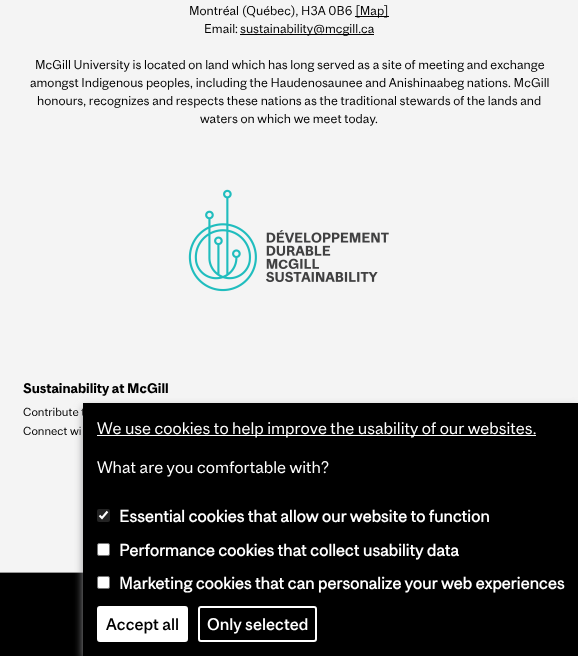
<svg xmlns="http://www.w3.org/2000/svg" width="578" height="656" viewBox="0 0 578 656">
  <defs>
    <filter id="blur1" x="-50%" y="-200%" width="200%" height="500%"><feGaussianBlur stdDeviation="4"/></filter>
  </defs>
  <rect width="100%" height="100%" fill="#f4f4f4"/>
  <text x="189" y="15" font-family="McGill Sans" font-size="12" fill="#000000">Montréal (Québec), H3A 0B6</text>
  <rect x="355" y="16" width="34" height="1" fill="#000000"/>
  <text x="355" y="15" font-family="McGill Sans" font-size="12" fill="#000000">[Map]</text>
  <text x="204" y="33" font-family="McGill Sans" font-size="12" fill="#000000">Email:</text>
  <rect x="240" y="34" width="134" height="1" fill="#000000"/>
  <text x="240" y="33" font-family="McGill Sans" font-size="12" fill="#000000">sustainability@mcgill.ca</text>
  <text x="35" y="69" font-family="McGill Sans" font-size="12" fill="#000000">McGill University is located on land which has long served as a site of meeting and exchange</text>
  <text x="30" y="87" font-family="McGill Sans" font-size="12" fill="#000000">amongst Indigenous peoples, including the Haudenosaunee and Anishinaabeg nations. McGill</text>
  <text x="37" y="105" font-family="McGill Sans" font-size="12" fill="#000000">honours, recognizes and respects these nations as the traditional stewards of the lands and</text>
  <text x="200" y="123" font-family="McGill Sans" font-size="12" fill="#000000">waters on which we meet today.</text>
  <image x="188" y="189" width="201" height="103" href="img1.png"/>
  <text x="23" y="393" font-family="McGill Sans" font-size="13" font-weight="bold" fill="#000000">Sustainability at McGill</text>
  <text x="23" y="416" font-family="McGill Sans" font-size="11" fill="#000000">Contribute t</text>
  <text x="23" y="435" font-family="McGill Sans" font-size="11" fill="#000000">Connect wi</text>
  <rect x="0" y="573" width="83" height="83" fill="#000000"/>
  <rect x="0" y="572" width="83" height="1" fill="#979797"/>
  <rect x="83" y="407" width="495" height="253" fill="#979799" filter="url(#blur1)"/>
  <rect x="83" y="403" width="495" height="253" fill="#000000"/>
  <rect x="97" y="435" width="439" height="1" fill="#ffffff"/>
  <text x="97" y="434" font-family="McGill Sans" font-size="15.7" fill="#ffffff">We use cookies to help improve the usability of our websites.</text>
  <text x="97" y="473" font-family="McGill Sans" font-size="15.7" fill="#ffffff">What are you comfortable with?</text>
  <rect x="97" y="509" width="13" height="13" rx="2" fill="#232323"/>
  <path d="M99.5 515.5L102 518L107.5 511.5" fill="none" stroke="#ffffff" stroke-width="2.1"/>
  <text x="119" y="522" font-family="'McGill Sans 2'" font-size="15.7" font-weight="bold" fill="#ffffff">Essential cookies that allow our website to function</text>
  <rect x="97.5" y="543.5" width="12" height="12" rx="1.5" fill="#ffffff" stroke="#767676"/>
  <text x="119" y="556" font-family="'McGill Sans 2'" font-size="15.7" font-weight="bold" fill="#ffffff">Performance cookies that collect usability data</text>
  <rect x="97.5" y="576.5" width="12" height="12" rx="1.5" fill="#ffffff" stroke="#767676"/>
  <text x="119" y="589" font-family="'McGill Sans 2'" font-size="15.7" font-weight="bold" fill="#ffffff">Marketing cookies that can personalize your web experiences</text>
  <rect x="98" y="607" width="89" height="34" rx="2" fill="#ffffff" stroke="#ffffff" stroke-width="2"/>
  <text x="106" y="630" font-family="McGill Sans" font-size="15.7" font-weight="500" fill="#000000">Accept all</text>
  <rect x="199" y="607" width="117" height="34" rx="2" fill="none" stroke="#ffffff" stroke-width="2"/>
  <text x="207" y="630" font-family="McGill Sans" font-size="15.7" font-weight="500" fill="#ffffff">Only selected</text>
</svg>
